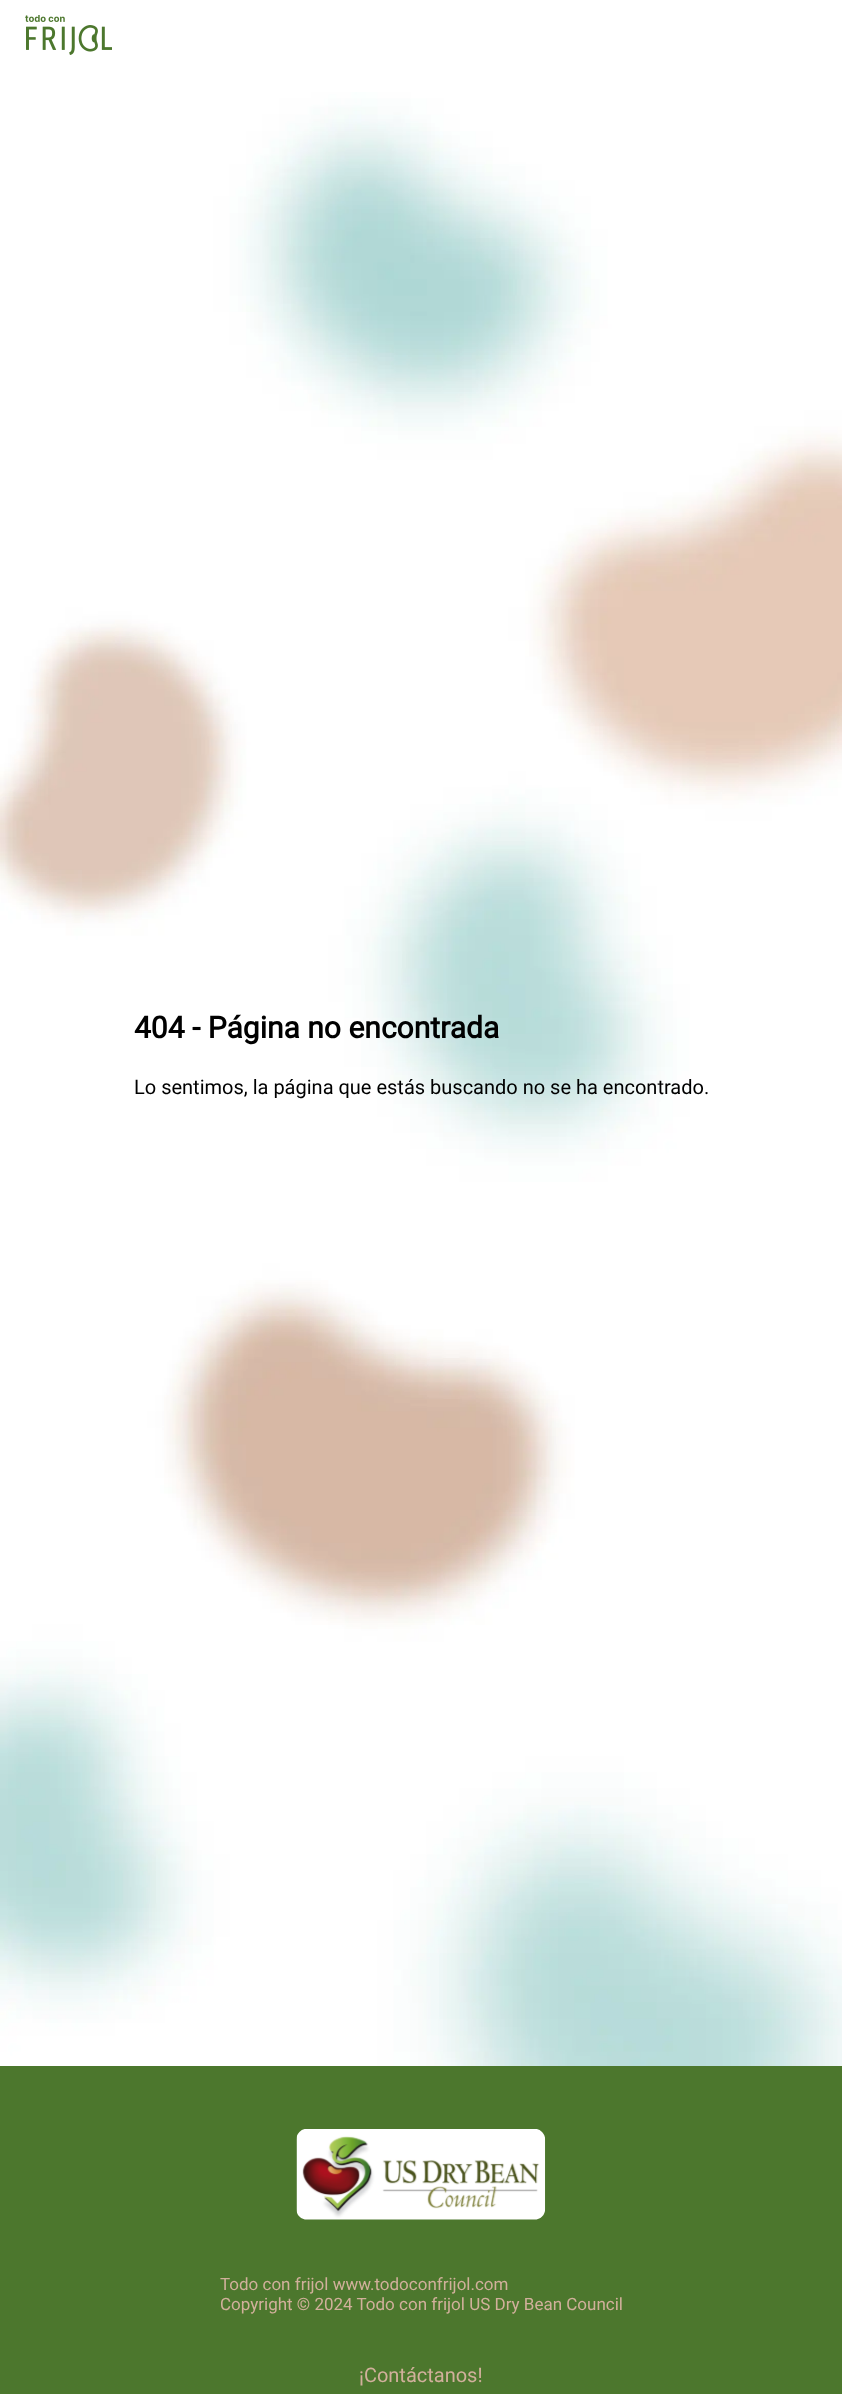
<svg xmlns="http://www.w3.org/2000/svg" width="842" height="2394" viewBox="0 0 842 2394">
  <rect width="100%" height="100%" fill="#ffffff"/>
  <image x="0" y="92" width="842" height="1974" href="img1.png"/>
  <image x="25" y="15" width="87" height="40" href="img2.png"/>
  <text x="134" y="1038" font-family="Roboto" font-size="30" font-weight="bold" fill="#000000">404 - Página no encontrada</text>
  <text x="134" y="1094" font-family="Roboto" font-size="20" fill="#000000">Lo sentimos, la página que estás buscando no se ha encontrado.</text>
  <rect x="0" y="2066" width="842" height="328" fill="#4c772d"/>
  <image x="296" y="2129" width="250" height="91" href="img3.png"/>
  <text x="220" y="2290" font-family="Roboto" font-size="17" fill="#d1b09b">Todo con frijol www.todoconfrijol.com</text>
  <text x="220" y="2310" font-family="Roboto" font-size="17" fill="#d1b09b">Copyright © 2024 Todo con frijol US Dry Bean Council</text>
  <text x="359" y="2382" font-family="Roboto" font-size="20" fill="#d1b09b">¡Contáctanos!</text>
</svg>
